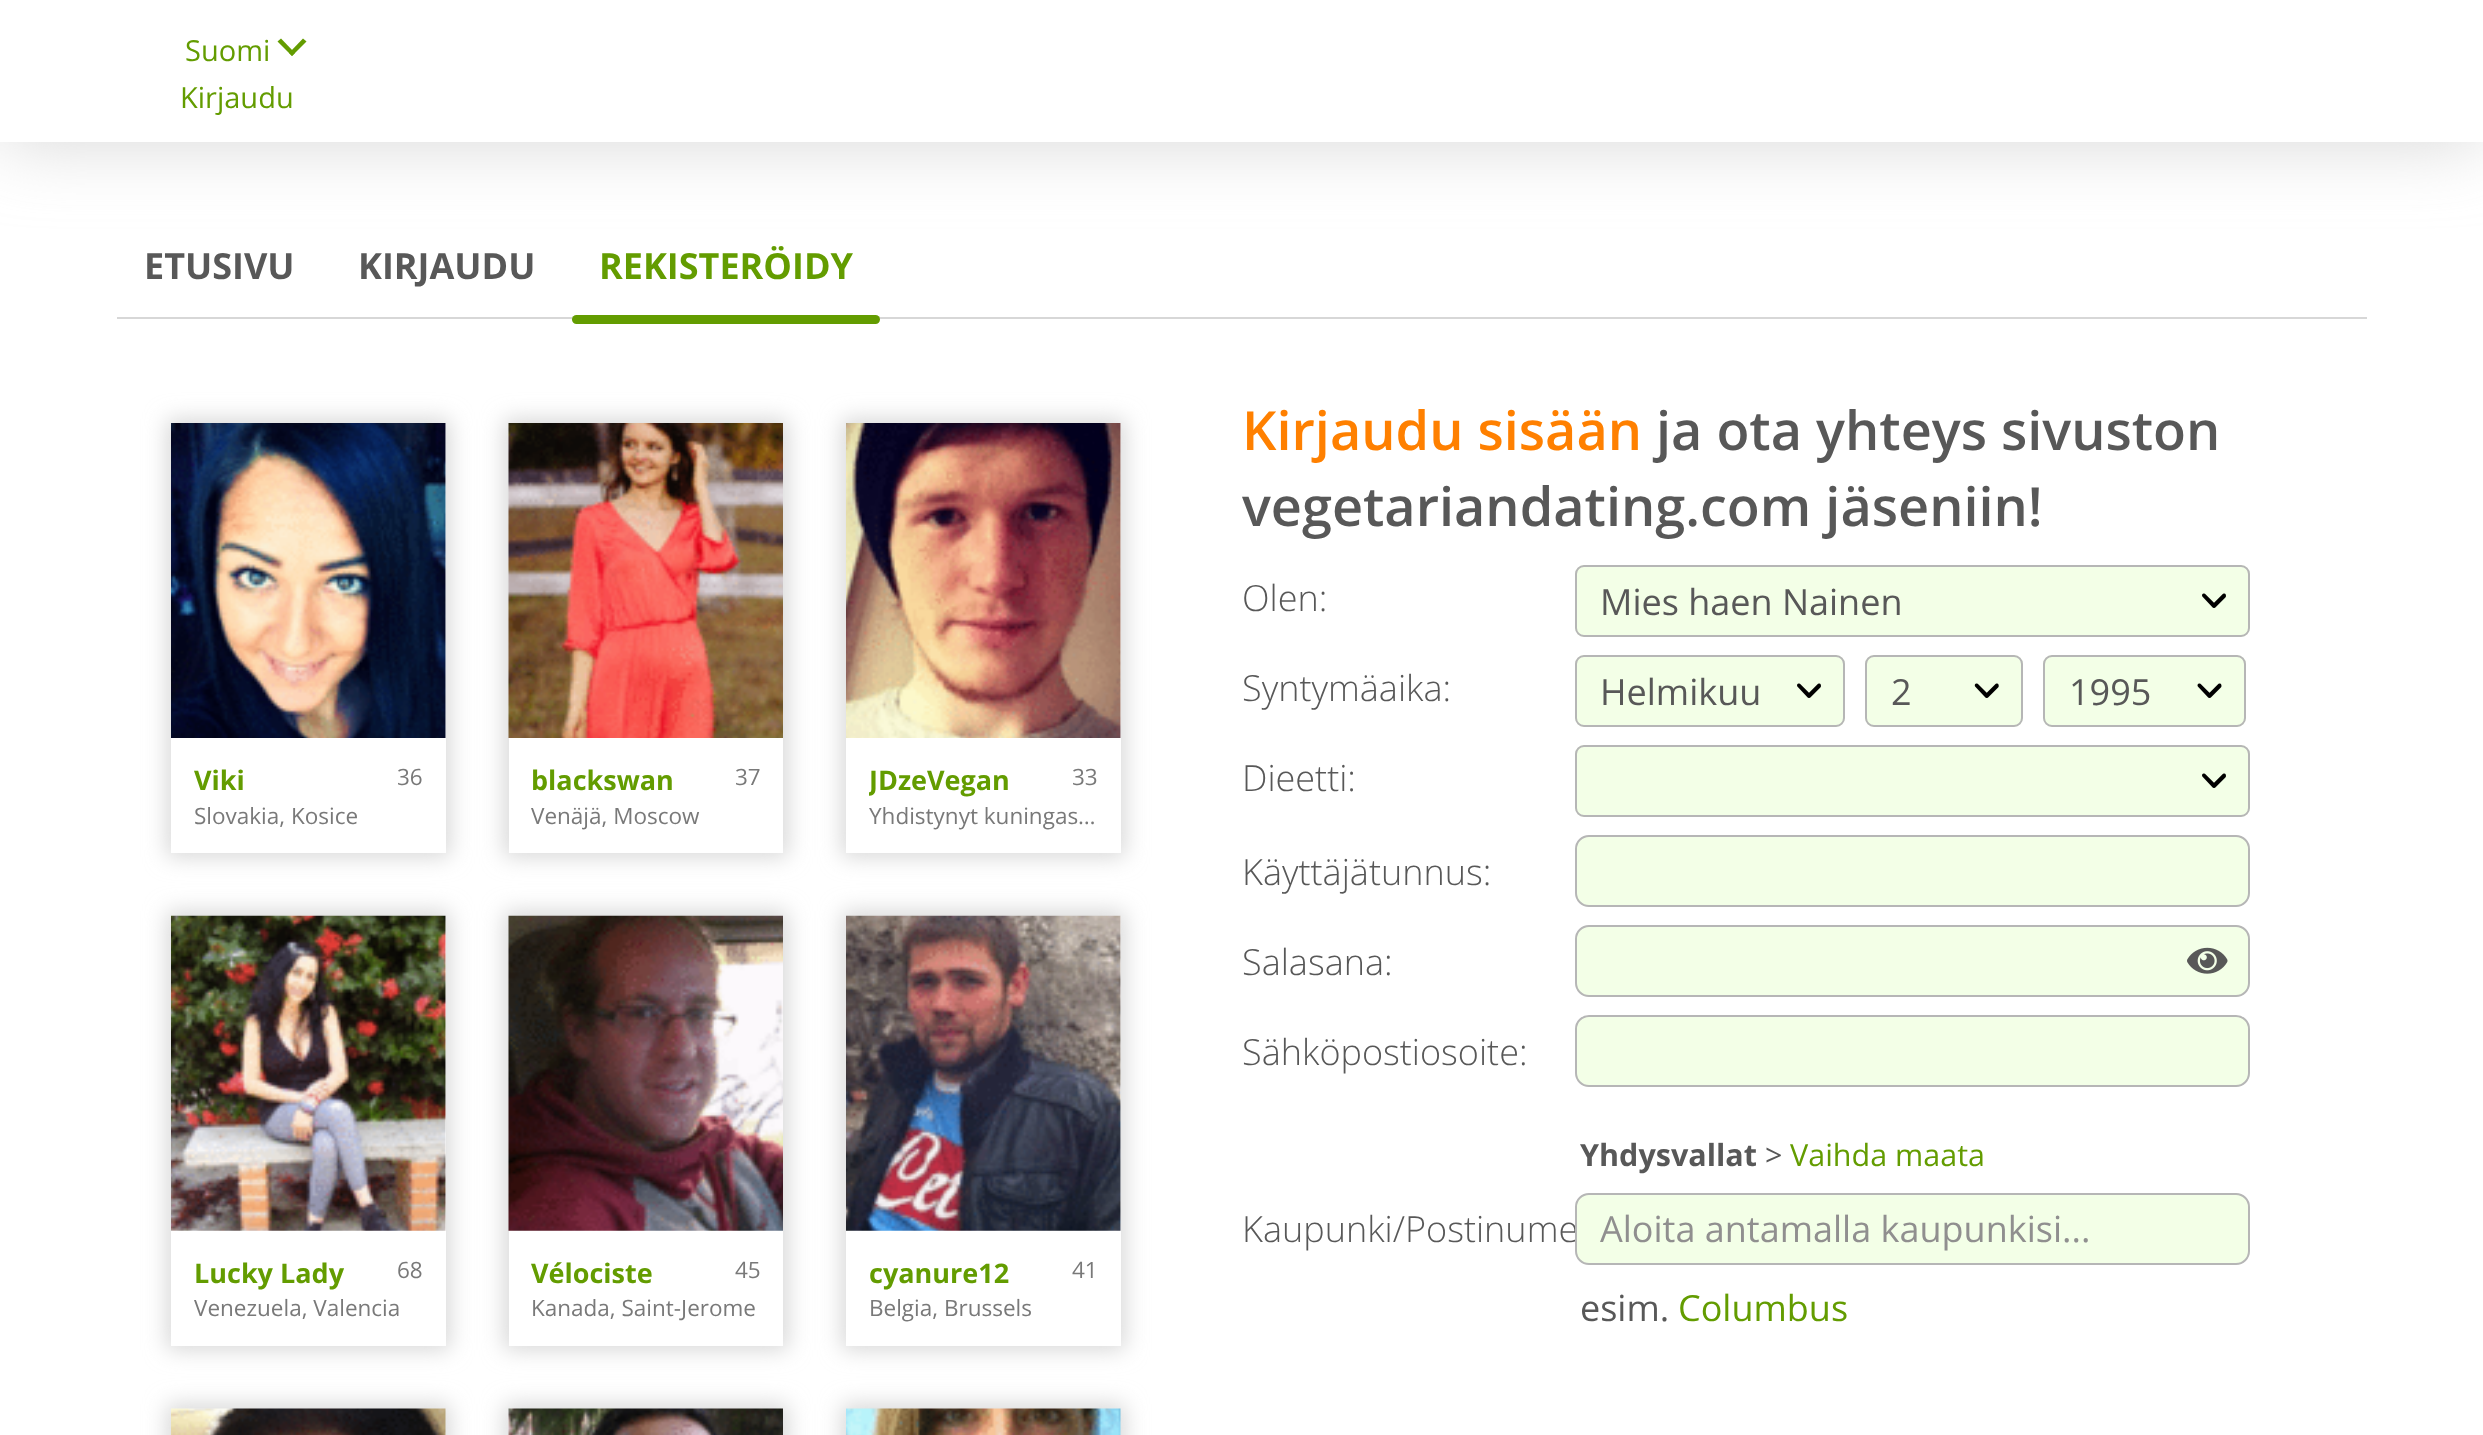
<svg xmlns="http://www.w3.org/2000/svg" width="2483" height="1435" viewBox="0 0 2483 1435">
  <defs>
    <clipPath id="clip1"><path d="M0 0H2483V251H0ZM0 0H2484V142H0Z" clip-rule="evenodd"/></clipPath>
    <filter id="blur1" x="-50%" y="-200%" width="200%" height="500%"><feGaussianBlur stdDeviation="36"/></filter>
    <clipPath id="clip2"><path d="M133 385H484V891H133ZM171 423H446V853H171Z" clip-rule="evenodd"/></clipPath>
    <filter id="blur2" x="-50%" y="-200%" width="200%" height="500%"><feGaussianBlur stdDeviation="11"/></filter>
    <clipPath id="clip3"><path d="M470 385H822V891H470ZM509 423H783V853H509Z" clip-rule="evenodd"/></clipPath>
    <clipPath id="clip4"><path d="M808 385H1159V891H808ZM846 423H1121V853H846Z" clip-rule="evenodd"/></clipPath>
    <clipPath id="clip5"><rect x="869" y="761" width="204" height="38"/></clipPath>
    <clipPath id="clip6"><path d="M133 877H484V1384H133ZM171 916H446V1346H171Z" clip-rule="evenodd"/></clipPath>
    <clipPath id="clip7"><path d="M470 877H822V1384H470ZM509 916H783V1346H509Z" clip-rule="evenodd"/></clipPath>
    <clipPath id="clip8"><path d="M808 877H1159V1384H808ZM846 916H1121V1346H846Z" clip-rule="evenodd"/></clipPath>
  </defs>
  <rect width="100%" height="100%" fill="#ffffff"/>
  <g clip-path="url(#clip1)">
    <rect x="0" y="0" width="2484" height="142" fill="#d7d7d7" filter="url(#blur1)"/>
  </g>
  <text x="185" y="61" font-family="Open Sans" font-size="29" fill="#639c00">Suomi</text>
  <path d="M303 38.5L306.5 41.5L292 56L289 53Z" fill="#639c00"/>
  <path d="M281 38.5L295 53L292 56L277.5 41.5Z" fill="#639c00"/>
  <text x="180" y="108" font-family="Open Sans" font-size="29" fill="#639c00">Kirjaudu</text>
  <rect x="117" y="317" width="2250" height="2" fill="#d7d7d7"/>
  <text x="144" y="279" font-family="Open Sans" font-size="36" font-weight="bold" fill="#585858">ETUSIVU</text>
  <text x="358" y="279" font-family="Open Sans" font-size="36" font-weight="bold" fill="#585858">KIRJAUDU</text>
  <text x="599" y="279" font-family="Open Sans" font-size="36" font-weight="bold" fill="#639c00">REKISTERÖIDY</text>
  <rect x="572" y="315" width="308" height="9" rx="4.5" fill="#639c00"/>
  <g clip-path="url(#clip2)">
    <rect x="167" y="419" width="283" height="438" fill="#d7d7d7" filter="url(#blur2)"/>
  </g>
  <image x="171" y="423" width="275" height="315" href="img1.png"/>
  <text x="194" y="790" font-family="Open Sans" font-size="27" font-weight="bold" fill="#639c00">Viki</text>
  <text x="397" y="785" font-family="Open Sans" font-size="22.5" fill="#797979">36</text>
  <text x="194" y="824" font-family="Open Sans" font-size="22.5" fill="#797979">Slovakia, Kosice</text>
  <g clip-path="url(#clip3)">
    <rect x="504" y="419" width="284" height="438" fill="#d7d7d7" filter="url(#blur2)"/>
  </g>
  <image x="508" y="423" width="275" height="315" href="img2.png"/>
  <text x="531" y="790" font-family="Open Sans" font-size="27" font-weight="bold" fill="#639c00">blackswan</text>
  <text x="735" y="785" font-family="Open Sans" font-size="22.5" fill="#797979">37</text>
  <text x="531" y="824" font-family="Open Sans" font-size="22.5" fill="#797979">Venäjä, Moscow</text>
  <g clip-path="url(#clip4)">
    <rect x="842" y="419" width="283" height="438" fill="#d7d7d7" filter="url(#blur2)"/>
  </g>
  <image x="846" y="423" width="275" height="315" href="img3.png"/>
  <g clip-path="url(#clip5)">
    <text x="869" y="790" font-family="Open Sans" font-size="27" font-weight="bold" fill="#639c00">JDzeVegan</text>
  </g>
  <text x="1072" y="785" font-family="Open Sans" font-size="22.5" fill="#797979">33</text>
  <text x="869" y="824" font-family="Open Sans" font-size="22.5" fill="#797979">Yhdistynyt kuningas…</text>
  <g clip-path="url(#clip6)">
    <rect x="167" y="911" width="283" height="439" fill="#d7d7d7" filter="url(#blur2)"/>
  </g>
  <image x="171" y="915" width="275" height="316" href="img4.png"/>
  <text x="194" y="1283" font-family="Open Sans" font-size="27" font-weight="bold" fill="#639c00">Lucky Lady</text>
  <text x="397" y="1278" font-family="Open Sans" font-size="22.5" fill="#797979">68</text>
  <text x="194" y="1316" font-family="Open Sans" font-size="22.5" fill="#797979">Venezuela, Valencia</text>
  <g clip-path="url(#clip7)">
    <rect x="504" y="911" width="284" height="439" fill="#d7d7d7" filter="url(#blur2)"/>
  </g>
  <image x="508" y="915" width="275" height="316" href="img5.png"/>
  <text x="531" y="1283" font-family="Open Sans" font-size="27" font-weight="bold" fill="#639c00">Vélociste</text>
  <text x="735" y="1278" font-family="Open Sans" font-size="22.5" fill="#797979">45</text>
  <text x="531" y="1316" font-family="Open Sans" font-size="22.5" fill="#797979">Kanada, Saint-Jerome</text>
  <g clip-path="url(#clip8)">
    <rect x="842" y="911" width="283" height="439" fill="#d7d7d7" filter="url(#blur2)"/>
  </g>
  <image x="846" y="915" width="275" height="316" href="img6.png"/>
  <text x="869" y="1283" font-family="Open Sans" font-size="27" font-weight="bold" fill="#639c00">cyanure12</text>
  <text x="1072" y="1278" font-family="Open Sans" font-size="22.5" fill="#797979">41</text>
  <text x="869" y="1316" font-family="Open Sans" font-size="22.5" fill="#797979">Belgia, Brussels</text>
  <rect x="167" y="1404" width="283" height="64" fill="#d7d7d7" filter="url(#blur2)"/>
  <image x="171" y="1408" width="275" height="27" href="img7.png"/>
  <rect x="504" y="1404" width="284" height="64" fill="#d7d7d7" filter="url(#blur2)"/>
  <image x="508" y="1408" width="275" height="27" href="img8.png"/>
  <rect x="842" y="1404" width="283" height="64" fill="#d7d7d7" filter="url(#blur2)"/>
  <image x="846" y="1408" width="275" height="27" href="img9.png"/>
  <text x="1242" y="450" font-family="Open Sans" font-size="54" font-weight="600" fill="#ff8000">Kirjaudu sisään</text>
  <text x="1656" y="450" font-family="Open Sans" font-size="54" font-weight="600" fill="#585858">ja ota yhteys sivuston</text>
  <text x="1242" y="526" font-family="Open Sans" font-size="54" font-weight="600" fill="#585858">vegetariandating.com jäseniin!</text>
  <text x="1242" y="611" font-family="Open Sans" font-size="36" font-weight="300" fill="#585858">Olen:</text>
  <rect x="1575" y="565" width="675" height="72" rx="9" fill="#f3ffe7"/>
  <image x="2202" y="593" width="24" height="15" href="img10.png"/>
  <rect x="1576" y="566" width="673" height="70" rx="8" fill="none" stroke="#b6b6b6" stroke-width="2"/>
  <text x="1600" y="615" font-family="Open Sans" font-size="36" fill="#585858">Mies haen Nainen</text>
  <text x="1242" y="701" font-family="Open Sans" font-size="36" font-weight="300" fill="#585858">Syntymäaika:</text>
  <rect x="1575" y="655" width="270" height="72" rx="9" fill="#f3ffe7"/>
  <image x="1797" y="683" width="24" height="15" href="img10.png"/>
  <rect x="1576" y="656" width="268" height="70" rx="8" fill="none" stroke="#b6b6b6" stroke-width="2"/>
  <text x="1600" y="705" font-family="Open Sans" font-size="36" fill="#585858">Helmikuu</text>
  <rect x="1865" y="655" width="158" height="72" rx="9" fill="#f3ffe7"/>
  <image x="1974" y="683" width="25" height="15" href="img11.png"/>
  <rect x="1866" y="656" width="156" height="70" rx="8" fill="none" stroke="#b6b6b6" stroke-width="2"/>
  <text x="1891" y="705" font-family="Open Sans" font-size="36" fill="#585858">2</text>
  <rect x="2043" y="655" width="203" height="72" rx="9" fill="#f3ffe7"/>
  <image x="2197" y="683" width="25" height="15" href="img12.png"/>
  <rect x="2044" y="656" width="201" height="70" rx="8" fill="none" stroke="#b6b6b6" stroke-width="2"/>
  <text x="2069" y="705" font-family="Open Sans" font-size="36" fill="#585858">1995</text>
  <text x="1242" y="791" font-family="Open Sans" font-size="36" font-weight="300" fill="#585858">Dieetti:</text>
  <rect x="1575" y="745" width="675" height="72" rx="9" fill="#f3ffe7"/>
  <image x="2202" y="773" width="24" height="15" href="img10.png"/>
  <rect x="1576" y="746" width="673" height="70" rx="8" fill="none" stroke="#b6b6b6" stroke-width="2"/>
  <text x="1242" y="885" font-family="Open Sans" font-size="36" font-weight="300" fill="#585858">Käyttäjätunnus:</text>
  <rect x="1576" y="836" width="673" height="70" rx="13" fill="#f3ffe7" stroke="#b6b6b6" stroke-width="2"/>
  <text x="1242" y="975" font-family="Open Sans" font-size="36" font-weight="300" fill="#585858">Salasana:</text>
  <rect x="1576" y="926" width="673" height="70" rx="13" fill="#f3ffe7" stroke="#b6b6b6" stroke-width="2"/>
  <image x="2187" y="947" width="41" height="27" href="img13.png"/>
  <text x="1242" y="1065" font-family="Open Sans" font-size="36" font-weight="300" fill="#585858">Sähköpostiosoite:</text>
  <rect x="1576" y="1016" width="673" height="70" rx="13" fill="#f3ffe7" stroke="#b6b6b6" stroke-width="2"/>
  <text x="1580" y="1166" font-family="Open Sans" font-size="30.5" font-weight="bold" fill="#585858">Yhdysvallat</text>
  <text x="1765" y="1166" font-family="Open Sans" font-size="30.5" fill="#585858">&gt;</text>
  <text x="1790" y="1166" font-family="Open Sans" font-size="30.5" fill="#639c00">Vaihda maata</text>
  <text x="1242" y="1242" font-family="Open Sans" font-size="36" font-weight="300" fill="#585858">Kaupunki/Postinume</text>
  <rect x="1576" y="1194" width="673" height="70" rx="13" fill="#f3ffe7" stroke="#b6b6b6" stroke-width="2"/>
  <text x="1600" y="1242" font-family="Open Sans" font-size="36" fill="#908f8f">Aloita antamalla kaupunkisi...</text>
  <text x="1580" y="1321" font-family="Open Sans" font-size="36" fill="#585858">esim.</text>
  <text x="1678" y="1321" font-family="Open Sans" font-size="36" fill="#639c00">Columbus</text>
</svg>
